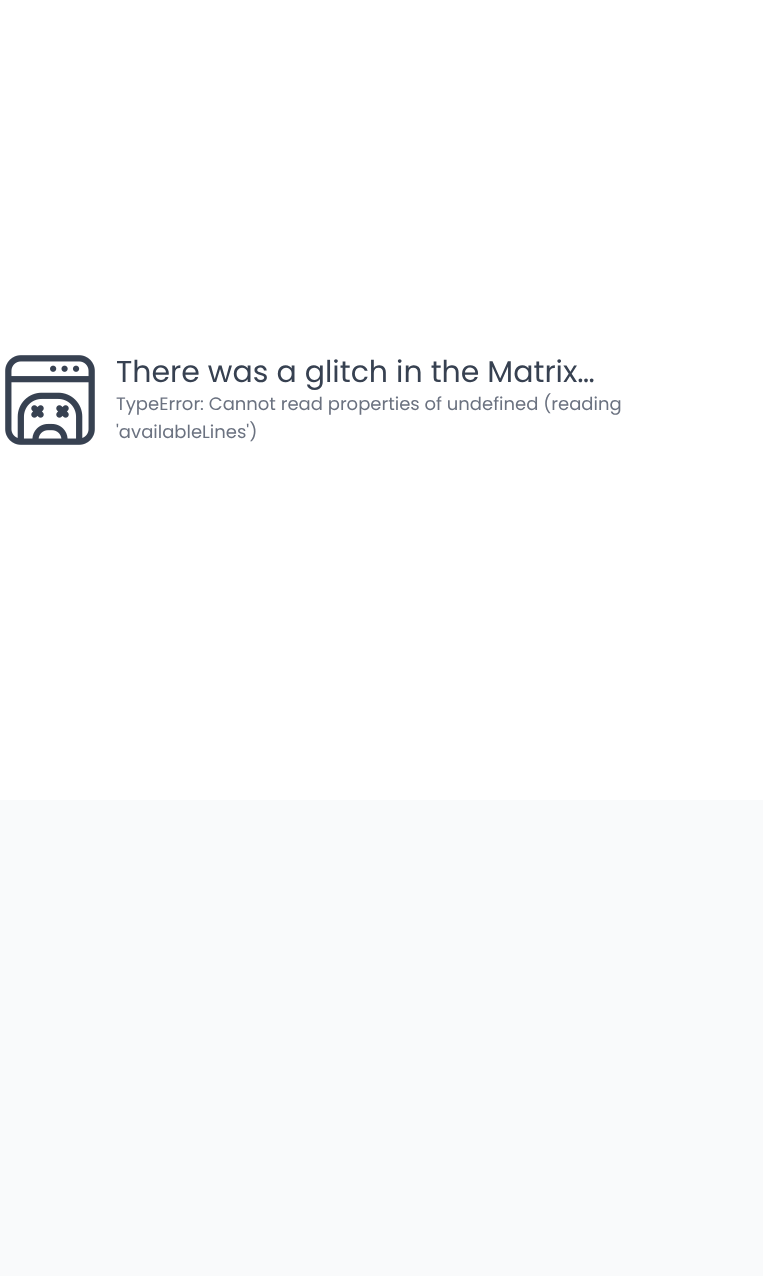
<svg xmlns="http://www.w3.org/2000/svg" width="763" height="1276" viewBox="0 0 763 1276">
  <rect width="100%" height="100%" fill="#f9fafb"/>
  <rect x="0" y="0" width="763" height="800" fill="#ffffff"/>
  <image x="5" y="355" width="90" height="90" href="img1.png"/>
  <text x="116" y="382" font-family="Poppins" font-size="30" fill="#374151">There was a glitch in the Matrix…</text>
  <text x="116" y="410" font-family="Poppins" font-size="18" fill="#6b7280">TypeError: Cannot read properties of undefined (reading</text>
  <text x="116" y="438" font-family="Poppins" font-size="18" fill="#6b7280">'availableLines')</text>
</svg>
